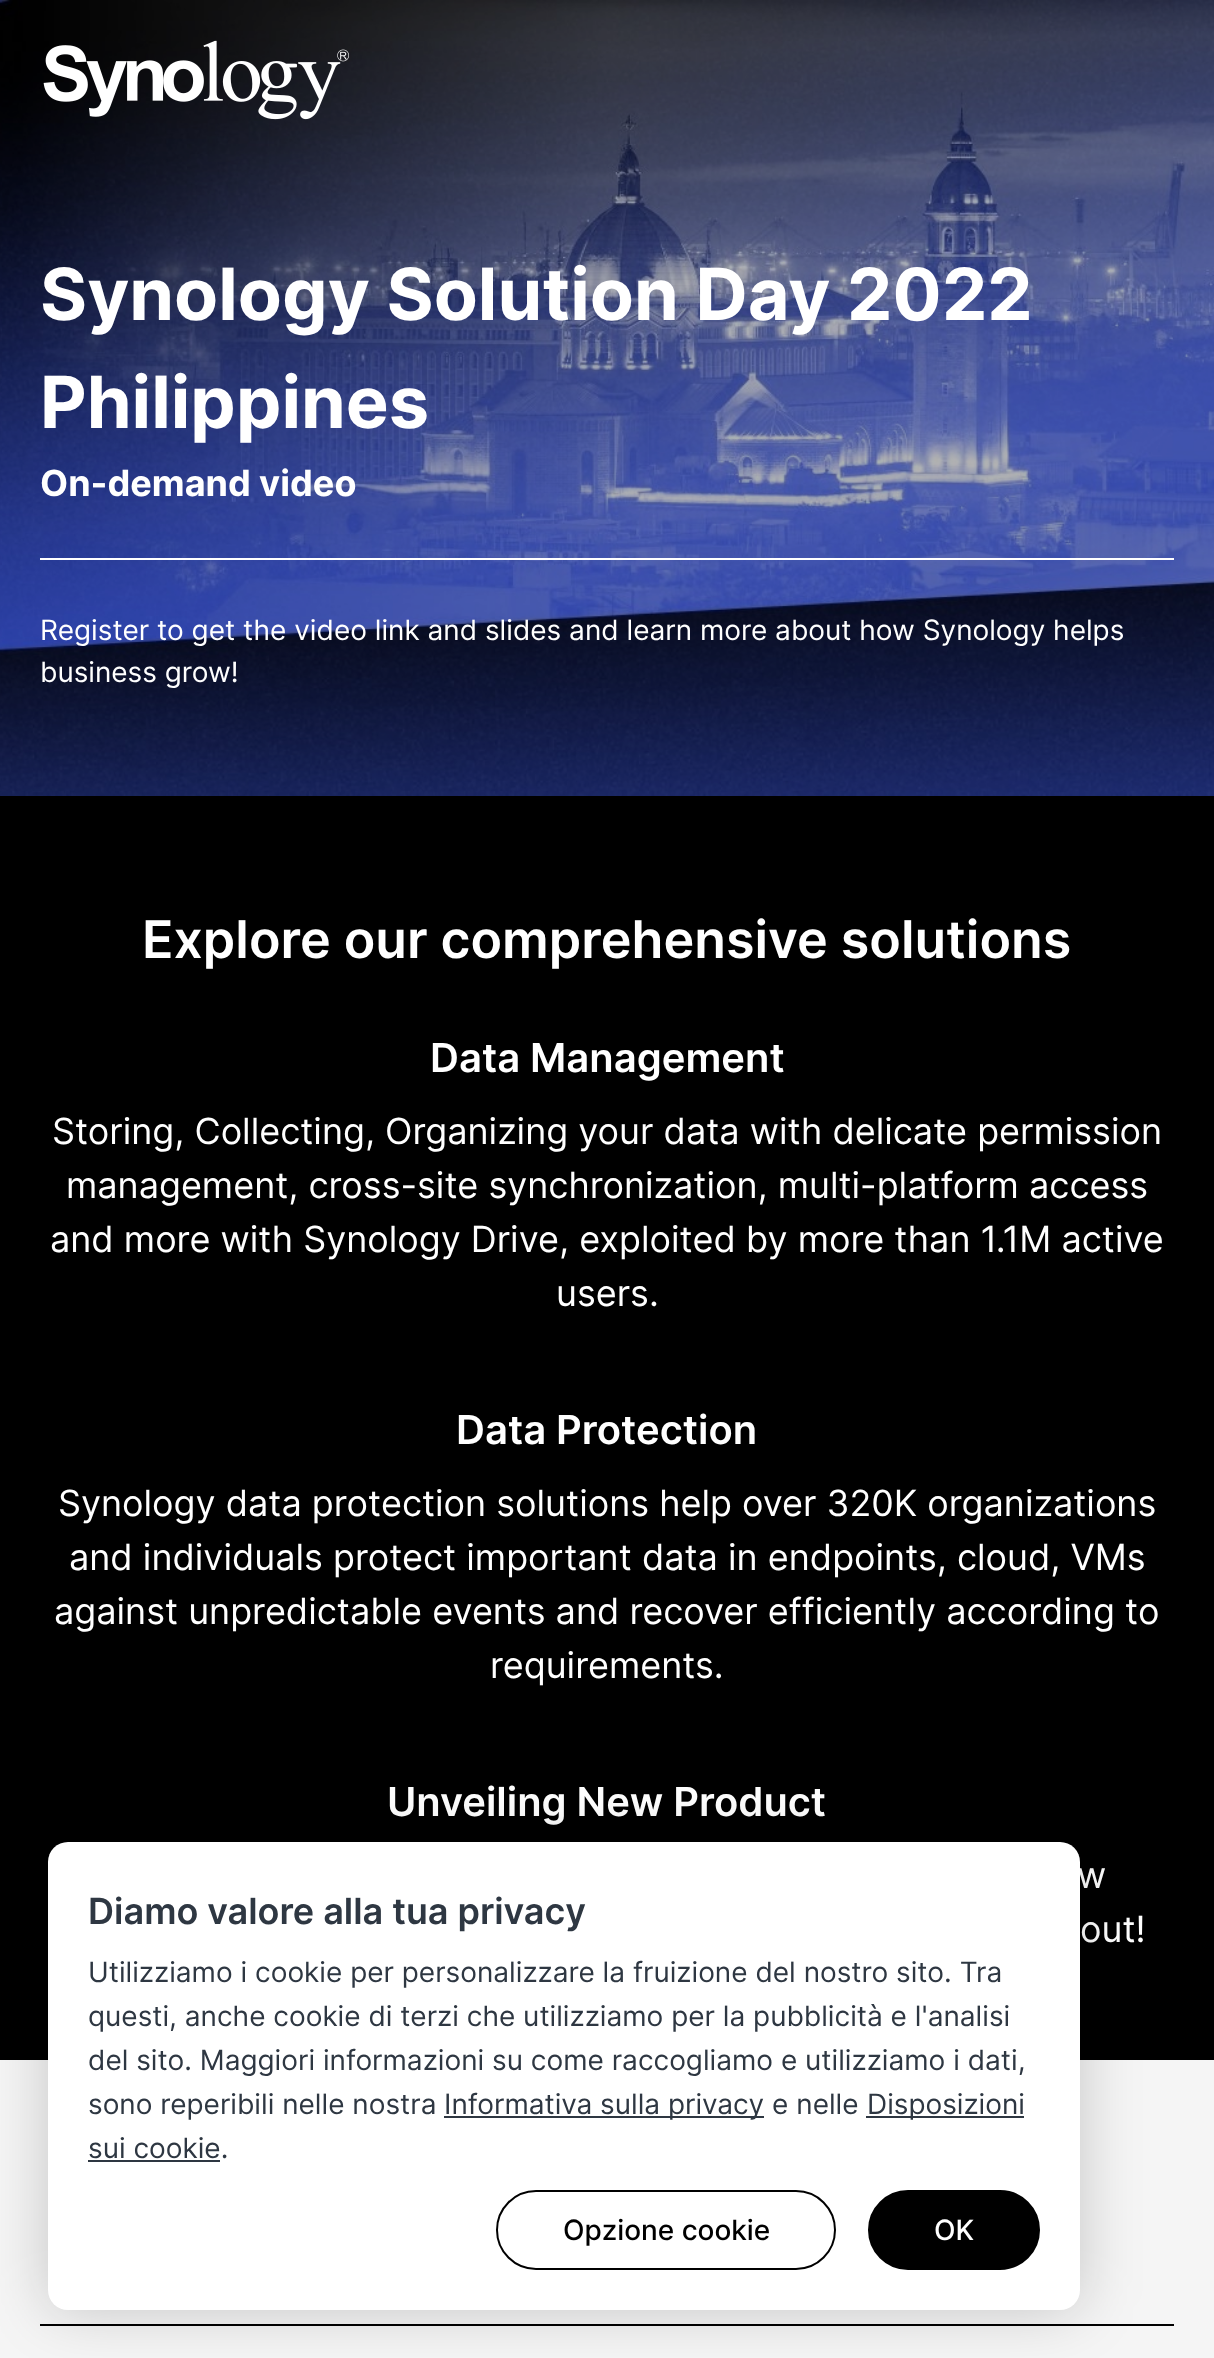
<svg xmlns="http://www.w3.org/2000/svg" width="1214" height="2358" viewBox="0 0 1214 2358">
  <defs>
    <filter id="blur1" x="-50%" y="-200%" width="200%" height="500%"><feGaussianBlur stdDeviation="30"/></filter>
  </defs>
  <rect width="100%" height="100%" fill="#f5f5f5"/>
  <image x="0" y="0" width="1214" height="796" href="img1.png"/>
  <image x="43" y="40" width="306" height="80" href="img2.png"/>
  <text x="40" y="320" font-family="Inter" font-size="72" font-weight="bold" fill="#ffffff">Synology Solution Day 2022</text>
  <text x="40" y="428" font-family="Inter" font-size="72" font-weight="bold" fill="#ffffff">Philippines</text>
  <text x="40" y="496" font-family="Inter" font-size="36" font-weight="bold" fill="#ffffff">On-demand video</text>
  <rect x="40" y="558" width="1134" height="2" fill="#ffffff"/>
  <text x="40" y="640" font-family="Inter" font-size="28" fill="#ffffff">Register to get the video link and slides and learn more about how Synology helps</text>
  <text x="40" y="682" font-family="Inter" font-size="28" fill="#ffffff">business grow!</text>
  <rect x="0" y="796" width="1214" height="1264" fill="#000000"/>
  <text x="142" y="958" font-family="Inter" font-size="52" font-weight="600" fill="#ffffff">Explore our comprehensive solutions</text>
  <text x="430" y="1072" font-family="Inter" font-size="40" font-weight="600" fill="#ffffff">Data Management</text>
  <text x="52" y="1144" font-family="Inter" font-size="36" fill="#ffffff">Storing, Collecting, Organizing your data with delicate permission</text>
  <text x="66" y="1198" font-family="Inter" font-size="36" fill="#ffffff">management, cross-site synchronization, multi-platform access</text>
  <text x="50" y="1252" font-family="Inter" font-size="36" fill="#ffffff">and more with Synology Drive, exploited by more than 1.1M active</text>
  <text x="556" y="1306" font-family="Inter" font-size="36" fill="#ffffff">users.</text>
  <text x="456" y="1444" font-family="Inter" font-size="40" font-weight="600" fill="#ffffff">Data Protection</text>
  <text x="58" y="1516" font-family="Inter" font-size="36" fill="#ffffff">Synology data protection solutions help over 320K organizations</text>
  <text x="69" y="1570" font-family="Inter" font-size="36" fill="#ffffff">and individuals protect important data in endpoints, cloud, VMs</text>
  <text x="54" y="1624" font-family="Inter" font-size="36" fill="#ffffff">against unpredictable events and recover efficiently according to</text>
  <text x="490" y="1678" font-family="Inter" font-size="36" fill="#ffffff">requirements.</text>
  <text x="387" y="1816" font-family="Inter" font-size="40" font-weight="600" fill="#ffffff">Unveiling New Product</text>
  <text x="1077" y="1888" font-family="Inter" font-size="36" fill="#ffffff">w</text>
  <text x="1080" y="1942" font-family="Inter" font-size="36" fill="#ffffff">out!</text>
  <rect x="40" y="2324" width="1134" height="2" fill="#000000"/>
  <rect x="48" y="1842" width="1032" height="468" rx="20" fill="#000000" fill-opacity="0.2" filter="url(#blur1)"/>
  <rect x="48" y="1842" width="1032" height="468" rx="20" fill="#ffffff"/>
  <text x="88" y="1924" font-family="Inter" font-size="36" font-weight="600" fill="#2e3742">Diamo valore alla tua privacy</text>
  <text x="88" y="1982" font-family="Inter" font-size="28" fill="#2e3742">Utilizziamo i cookie per personalizzare la fruizione del nostro sito. Tra</text>
  <text x="88" y="2026" font-family="Inter" font-size="28" fill="#2e3742">questi, anche cookie di terzi che utilizziamo per la pubblicità e l'analisi</text>
  <text x="88" y="2070" font-family="Inter" font-size="28" fill="#2e3742">del sito. Maggiori informazioni su come raccogliamo e utilizziamo i dati,</text>
  <text x="88" y="2114" font-family="Inter" font-size="28" fill="#2e3742">sono reperibili nelle nostra</text>
  <rect x="444" y="2116" width="320" height="2" fill="#2e3742"/>
  <text x="444" y="2114" font-family="Inter" font-size="28" fill="#2e3742">Informativa sulla privacy e nelle</text>
  <rect x="866" y="2116" width="158" height="2" fill="#2e3742"/>
  <text x="867" y="2114" font-family="Inter" font-size="28" fill="#2e3742">Disposizioni</text>
  <text x="88" y="2158" font-family="Inter" font-size="28" fill="#2e3742">sui cookie.</text>
  <rect x="88" y="2160" width="132" height="2" fill="#2e3742"/>
  <rect x="497" y="2191" width="338" height="78" rx="39" fill="none" stroke="#000000" stroke-width="2"/>
  <text x="563" y="2240" font-family="Inter" font-size="28" font-weight="500" fill="#000000">Opzione cookie</text>
  <rect x="869" y="2191" width="170" height="78" rx="39" fill="#000000" stroke="#000000" stroke-width="2"/>
  <text x="934" y="2240" font-family="Inter" font-size="28" font-weight="500" fill="#ffffff">OK</text>
</svg>
